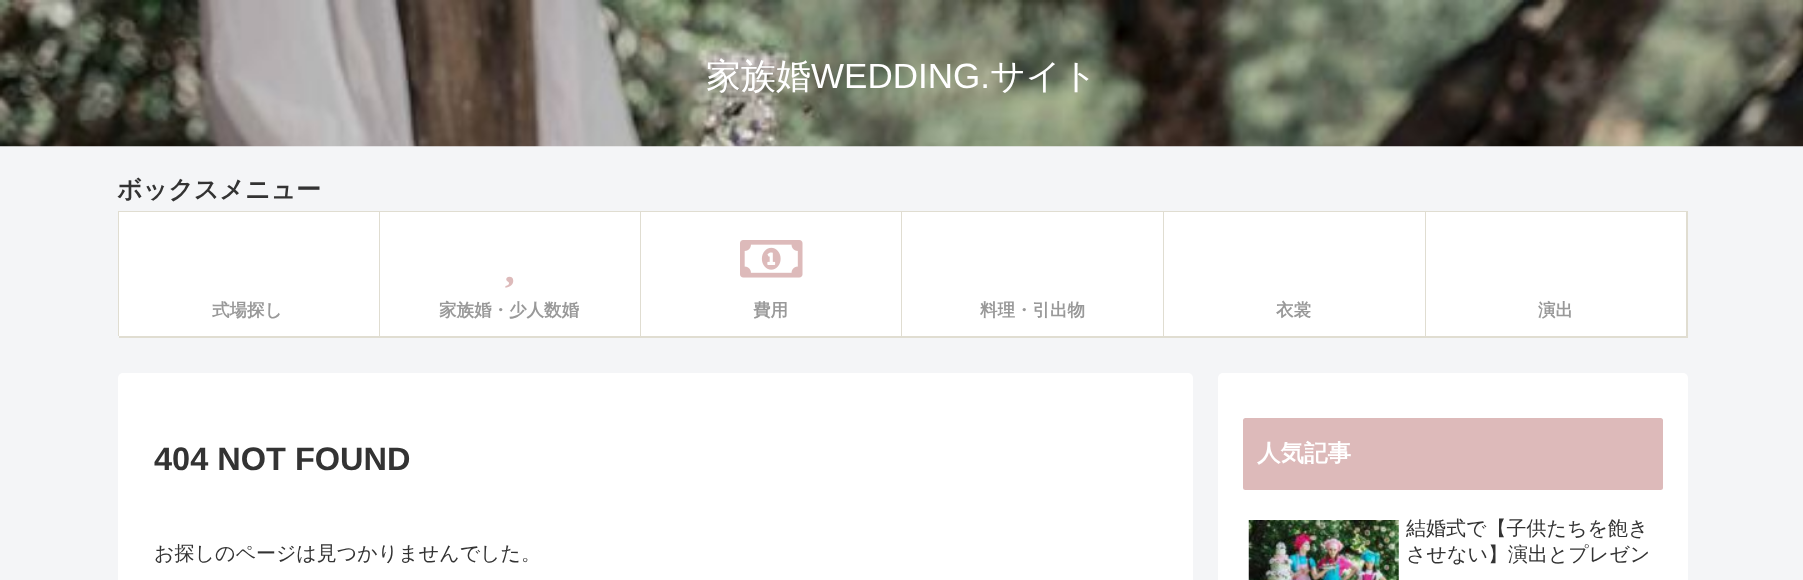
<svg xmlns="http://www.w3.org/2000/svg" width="1803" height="580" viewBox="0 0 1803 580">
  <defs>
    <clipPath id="clip1"><rect x="118" y="211" width="261" height="125"/></clipPath>
    <clipPath id="clip2"><rect x="379" y="211" width="261" height="125"/></clipPath>
    <clipPath id="clip3"><rect x="640" y="211" width="261" height="125"/></clipPath>
    <clipPath id="clip4"><rect x="901" y="211" width="262" height="125"/></clipPath>
    <clipPath id="clip5"><rect x="1163" y="211" width="262" height="125"/></clipPath>
    <clipPath id="clip6"><rect x="1425" y="211" width="261" height="125"/></clipPath>
  </defs>
  <rect width="100%" height="100%" fill="#f4f5f7"/>
  <image x="0" y="0" width="1803" height="147" href="img1.png"/>
  <text x="706" y="88" font-family="WenQuanYi Zen Hei" font-size="35" font-weight="500" fill="#ffffff">家族婚</text>
  <text x="811" y="88" font-family="Liberation Sans" font-size="35" fill="#ffffff">WEDDING.</text>
  <text x="990" y="88" font-family="WenQuanYi Zen Hei" font-size="35" font-weight="500" fill="#ffffff">サイト</text>
  <text x="117" y="198" font-family="WenQuanYi Zen Hei" font-size="25" font-weight="bold" fill="#333333">ボックスメニュー</text>
  <path d="M119 336V338H380V213H379V336Z" fill="#e0ddd1"/>
  <rect x="119" y="212" width="260" height="124" fill="#ffffff"/>
  <g clip-path="url(#clip1)">
    <path d="M-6 88H502V460H-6ZM119 212H380V338H119Z" fill="#e0ddd1" fill-rule="evenodd"/>
  </g>
  <text x="212" y="316" font-family="WenQuanYi Zen Hei" font-size="17.5" font-weight="bold" fill="#999999">式場探し</text>
  <path d="M380 336V338H641V213H640V336Z" fill="#e0ddd1"/>
  <rect x="380" y="212" width="260" height="124" fill="#ffffff"/>
  <g clip-path="url(#clip2)">
    <path d="M255 88H764V460H255ZM380 212H641V338H380Z" fill="#e0ddd1" fill-rule="evenodd"/>
  </g>
  <image x="505" y="276" width="9" height="12" href="img2.png"/>
  <text x="439" y="316" font-family="WenQuanYi Zen Hei" font-size="17.5" font-weight="bold" fill="#999999">家族婚・少人数婚</text>
  <path d="M641 336V338H903V213H901V336Z" fill="#e0ddd1"/>
  <rect x="641" y="212" width="260" height="124" fill="#ffffff"/>
  <g clip-path="url(#clip3)">
    <path d="M516 88H1025V460H516ZM641 212H902V338H641Z" fill="#e0ddd1" fill-rule="evenodd"/>
  </g>
  <image x="740" y="240" width="63" height="38" href="img3.png"/>
  <text x="753" y="316" font-family="WenQuanYi Zen Hei" font-size="17.5" font-weight="bold" fill="#999999">費用</text>
  <path d="M903 336V338H1164V213H1162V336Z" fill="#e0ddd1"/>
  <rect x="902" y="212" width="261" height="124" fill="#ffffff"/>
  <g clip-path="url(#clip4)">
    <path d="M778 88H1286V460H778ZM902 212H1164V338H902Z" fill="#e0ddd1" fill-rule="evenodd"/>
  </g>
  <text x="980" y="316" font-family="WenQuanYi Zen Hei" font-size="17.5" font-weight="bold" fill="#999999">料理・引出物</text>
  <path d="M1164 336V338H1426V213H1425V336Z" fill="#e0ddd1"/>
  <rect x="1164" y="212" width="261" height="124" fill="#ffffff"/>
  <g clip-path="url(#clip5)">
    <path d="M1039 88H1549V460H1039ZM1164 212H1426V338H1164Z" fill="#e0ddd1" fill-rule="evenodd"/>
  </g>
  <text x="1276" y="316" font-family="WenQuanYi Zen Hei" font-size="17.5" font-weight="bold" fill="#999999">衣裳</text>
  <path d="M1426 211H1686V336H1688V211Z" fill="#e0ddd1"/>
  <path d="M1426 336V338H1688V213H1686V336Z" fill="#e0ddd1"/>
  <rect x="1426" y="212" width="260" height="124" fill="#ffffff"/>
  <g clip-path="url(#clip6)">
    <path d="M1301 88H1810V460H1301ZM1426 212H1688V338H1426Z" fill="#e0ddd1" fill-rule="evenodd"/>
  </g>
  <text x="1538" y="316" font-family="WenQuanYi Zen Hei" font-size="17.5" font-weight="bold" fill="#999999">演出</text>
  <rect x="118" y="373" width="1075" height="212" rx="5" fill="#ffffff"/>
  <text x="154" y="470" font-family="Liberation Sans" font-size="32.5" font-weight="bold" fill="#333333">404 NOT FOUND</text>
  <text x="154" y="560" font-family="WenQuanYi Zen Hei" font-size="20" font-weight="500" fill="#333333">お探しのページは見つかりませんでした。</text>
  <rect x="1218" y="373" width="470" height="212" rx="5" fill="#ffffff"/>
  <rect x="1243" y="418" width="420" height="72" rx="2.5" fill="#ddbaba"/>
  <text x="1257" y="461" font-family="WenQuanYi Zen Hei" font-size="23.5" font-weight="bold" fill="#ffffff">人気記事</text>
  <image x="1248" y="520" width="151" height="60" href="img4.png"/>
  <text x="1406" y="535" font-family="WenQuanYi Zen Hei" font-size="20" font-weight="500" fill="#333333">結婚式で【子供たちを飽き</text>
  <text x="1406" y="561" font-family="WenQuanYi Zen Hei" font-size="20" font-weight="500" fill="#333333">させない】演出とプレゼン</text>
</svg>
